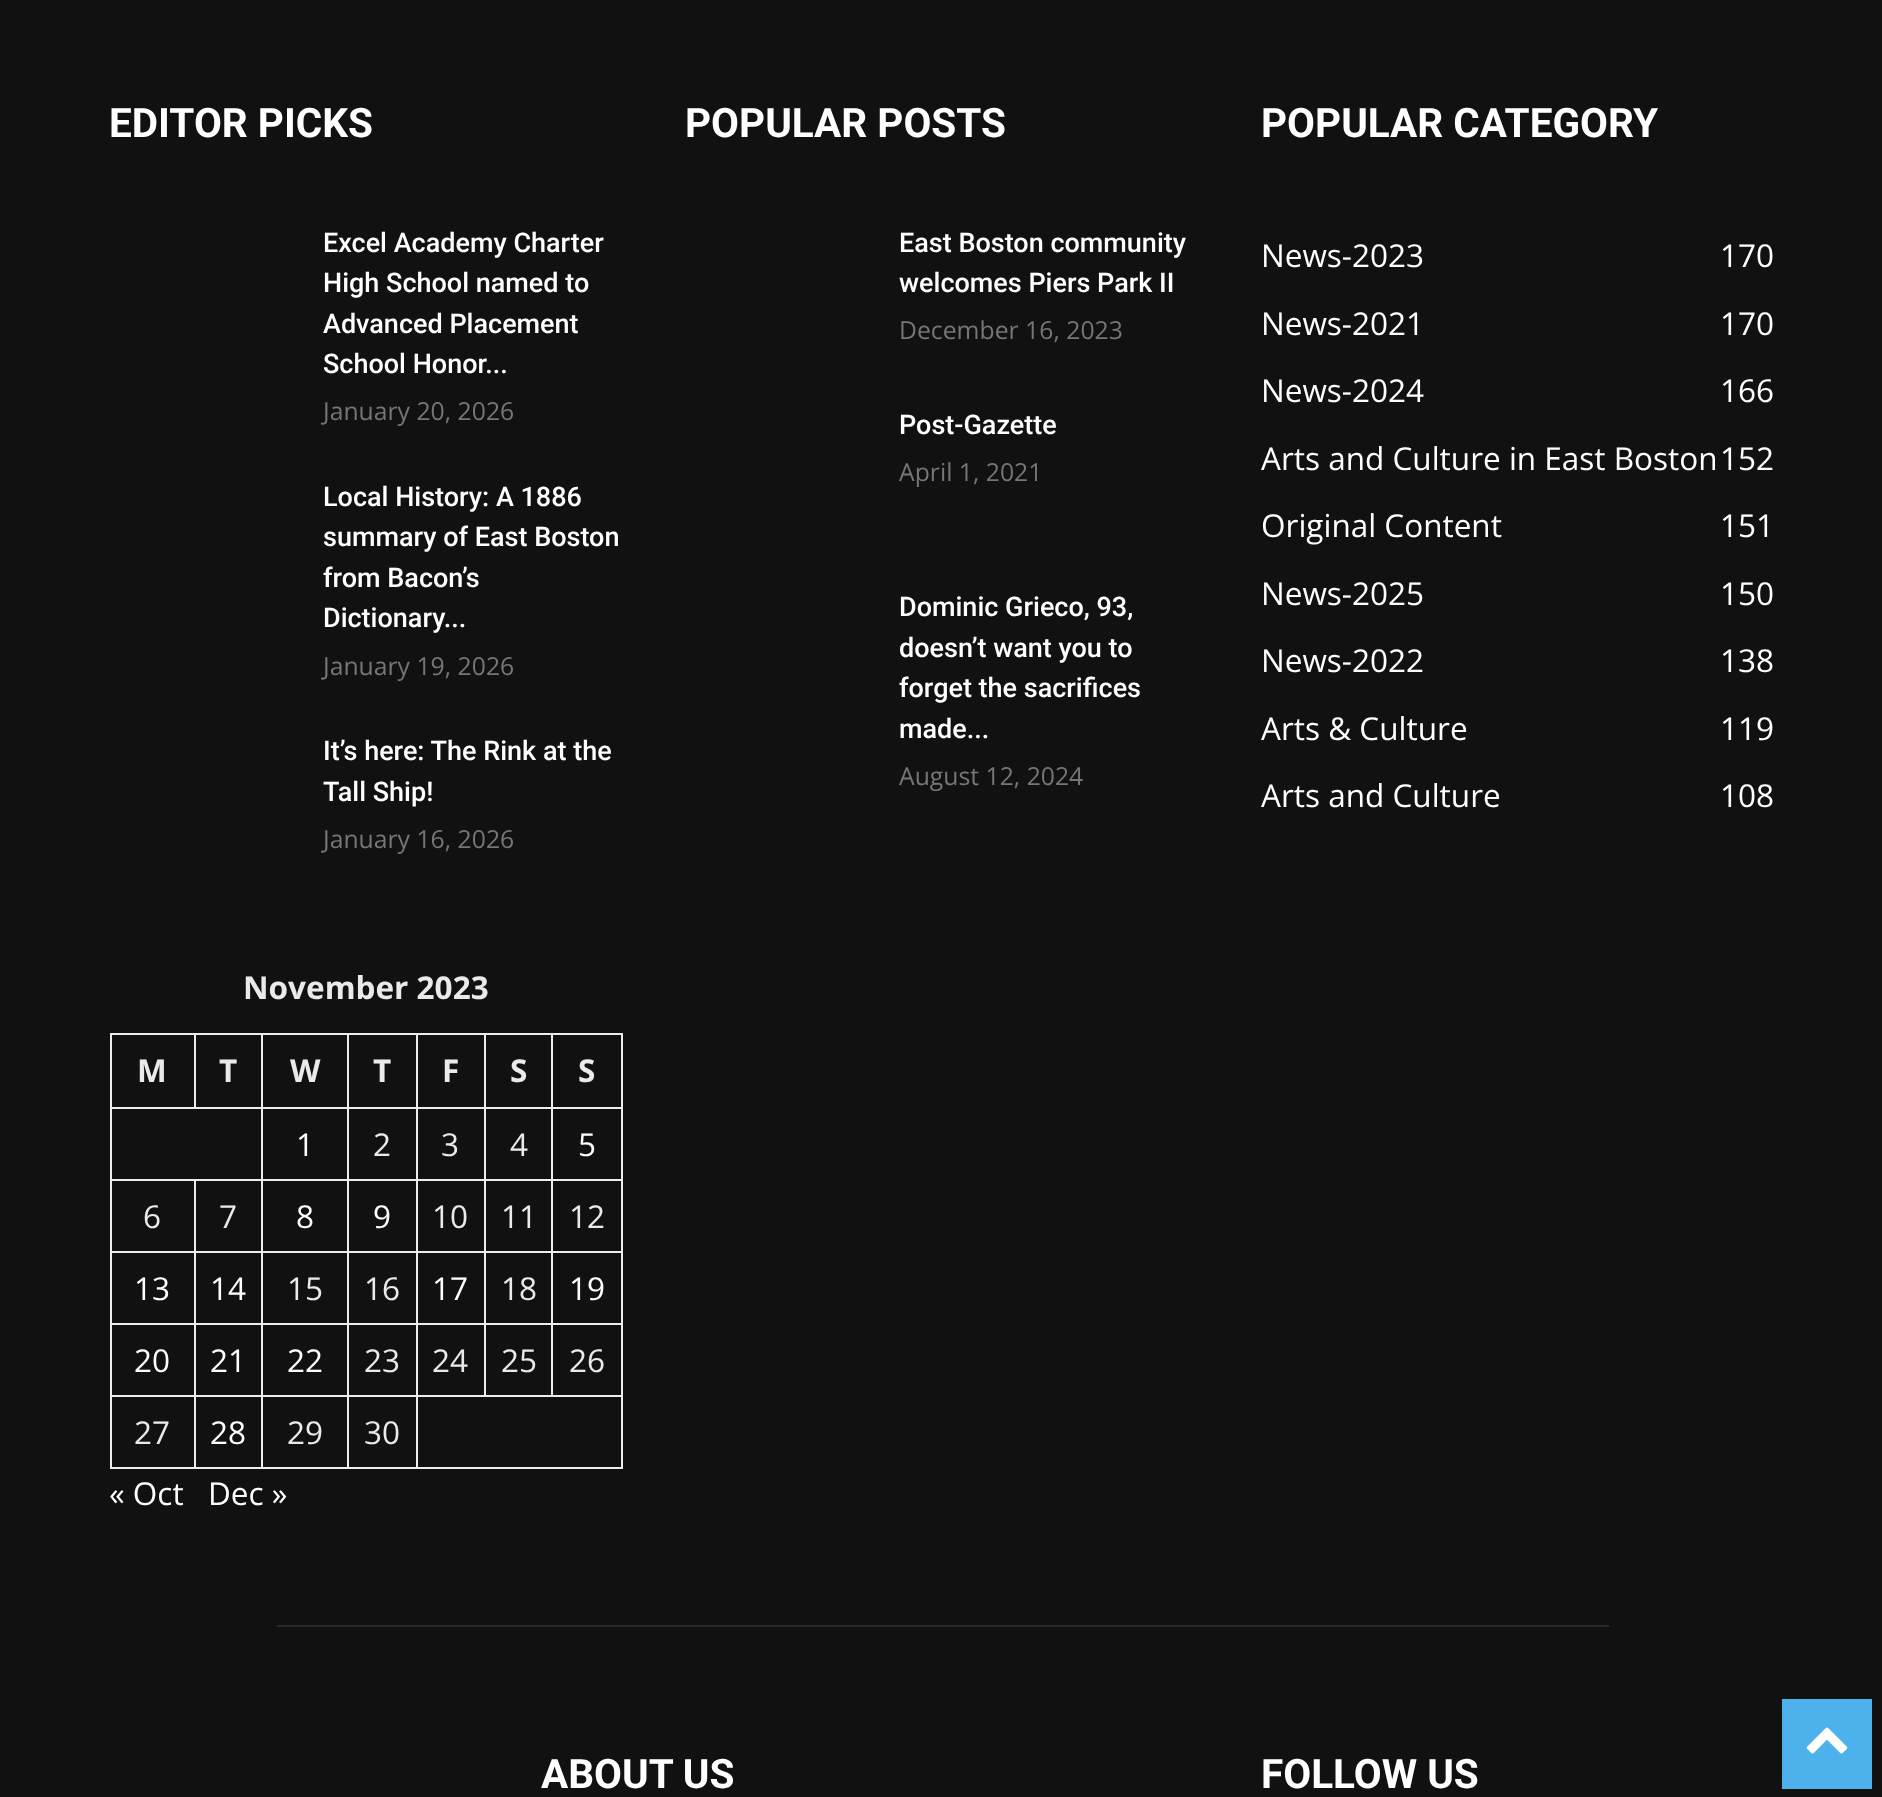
<svg xmlns="http://www.w3.org/2000/svg" width="1882" height="1797" viewBox="0 0 1882 1797">
  <rect width="100%" height="100%" fill="#111111"/>
  <text x="109" y="137" font-family="Roboto" font-size="40.5" font-weight="bold" fill="#ffffff">EDITOR PICKS</text>
  <text x="323" y="252" font-family="Roboto" font-size="27" font-weight="500" fill="#ffffff">Excel Academy Charter</text>
  <text x="323" y="292" font-family="Roboto" font-size="27" font-weight="500" fill="#ffffff">High School named to</text>
  <text x="323" y="333" font-family="Roboto" font-size="27" font-weight="500" fill="#ffffff">Advanced Placement</text>
  <text x="323" y="373" font-family="Roboto" font-size="27" font-weight="500" fill="#ffffff">School Honor...</text>
  <text x="323" y="420" font-family="Open Sans" font-size="24.75" fill="#767676">January 20, 2026</text>
  <text x="323" y="506" font-family="Roboto" font-size="27" font-weight="500" fill="#ffffff">Local History: A 1886</text>
  <text x="323" y="546" font-family="Roboto" font-size="27" font-weight="500" fill="#ffffff">summary of East Boston</text>
  <text x="323" y="587" font-family="Roboto" font-size="27" font-weight="500" fill="#ffffff">from Bacon’s</text>
  <text x="323" y="627" font-family="Roboto" font-size="27" font-weight="500" fill="#ffffff">Dictionary...</text>
  <text x="323" y="675" font-family="Open Sans" font-size="24.75" fill="#767676">January 19, 2026</text>
  <text x="323" y="760" font-family="Roboto" font-size="27" font-weight="500" fill="#ffffff">It’s here: The Rink at the</text>
  <text x="323" y="801" font-family="Roboto" font-size="27" font-weight="500" fill="#ffffff">Tall Ship!</text>
  <text x="323" y="848" font-family="Open Sans" font-size="24.75" fill="#767676">January 16, 2026</text>
  <text x="243" y="999" font-family="Open Sans" font-size="31.5" font-weight="bold" fill="#eaeaea">November 2023</text>
  <rect x="551" y="1033" width="72" height="2" fill="#ededed"/>
  <rect x="551" y="1107" width="72" height="2" fill="#ededed"/>
  <rect x="551" y="1179" width="72" height="2" fill="#ededed"/>
  <rect x="551" y="1251" width="72" height="2" fill="#ededed"/>
  <rect x="551" y="1323" width="72" height="2" fill="#ededed"/>
  <rect x="416" y="1395" width="207" height="2" fill="#ededed"/>
  <rect x="551" y="1323" width="2" height="74" fill="#ededed"/>
  <rect x="484" y="1323" width="70" height="2" fill="#ededed"/>
  <rect x="551" y="1251" width="2" height="74" fill="#ededed"/>
  <rect x="484" y="1251" width="70" height="2" fill="#ededed"/>
  <rect x="551" y="1179" width="2" height="74" fill="#ededed"/>
  <rect x="484" y="1179" width="70" height="2" fill="#ededed"/>
  <rect x="551" y="1107" width="2" height="74" fill="#ededed"/>
  <rect x="484" y="1107" width="70" height="2" fill="#ededed"/>
  <rect x="551" y="1033" width="2" height="76" fill="#ededed"/>
  <rect x="484" y="1033" width="70" height="2" fill="#ededed"/>
  <rect x="484" y="1323" width="2" height="74" fill="#ededed"/>
  <rect x="416" y="1323" width="70" height="2" fill="#ededed"/>
  <rect x="484" y="1251" width="2" height="74" fill="#ededed"/>
  <rect x="416" y="1251" width="70" height="2" fill="#ededed"/>
  <rect x="484" y="1179" width="2" height="74" fill="#ededed"/>
  <rect x="416" y="1179" width="70" height="2" fill="#ededed"/>
  <rect x="484" y="1107" width="2" height="74" fill="#ededed"/>
  <rect x="416" y="1107" width="70" height="2" fill="#ededed"/>
  <rect x="484" y="1033" width="2" height="76" fill="#ededed"/>
  <rect x="416" y="1033" width="70" height="2" fill="#ededed"/>
  <rect x="621" y="1395" width="2" height="74" fill="#ededed"/>
  <rect x="416" y="1467" width="207" height="2" fill="#ededed"/>
  <rect x="416" y="1395" width="2" height="74" fill="#ededed"/>
  <rect x="347" y="1395" width="72" height="2" fill="#ededed"/>
  <rect x="416" y="1323" width="2" height="74" fill="#ededed"/>
  <rect x="347" y="1323" width="72" height="2" fill="#ededed"/>
  <rect x="416" y="1251" width="2" height="74" fill="#ededed"/>
  <rect x="347" y="1251" width="72" height="2" fill="#ededed"/>
  <rect x="416" y="1179" width="2" height="74" fill="#ededed"/>
  <rect x="347" y="1179" width="72" height="2" fill="#ededed"/>
  <rect x="416" y="1107" width="2" height="74" fill="#ededed"/>
  <rect x="347" y="1107" width="72" height="2" fill="#ededed"/>
  <rect x="416" y="1033" width="2" height="76" fill="#ededed"/>
  <rect x="347" y="1033" width="72" height="2" fill="#ededed"/>
  <rect x="347" y="1467" width="72" height="2" fill="#ededed"/>
  <rect x="347" y="1395" width="2" height="74" fill="#ededed"/>
  <rect x="261" y="1395" width="88" height="2" fill="#ededed"/>
  <rect x="347" y="1323" width="2" height="74" fill="#ededed"/>
  <rect x="261" y="1323" width="88" height="2" fill="#ededed"/>
  <rect x="347" y="1251" width="2" height="74" fill="#ededed"/>
  <rect x="261" y="1251" width="88" height="2" fill="#ededed"/>
  <rect x="347" y="1179" width="2" height="74" fill="#ededed"/>
  <rect x="261" y="1179" width="88" height="2" fill="#ededed"/>
  <rect x="347" y="1107" width="2" height="74" fill="#ededed"/>
  <rect x="261" y="1107" width="88" height="2" fill="#ededed"/>
  <rect x="347" y="1033" width="2" height="76" fill="#ededed"/>
  <rect x="261" y="1033" width="88" height="2" fill="#ededed"/>
  <rect x="261" y="1467" width="88" height="2" fill="#ededed"/>
  <rect x="261" y="1395" width="2" height="74" fill="#ededed"/>
  <rect x="194" y="1395" width="69" height="2" fill="#ededed"/>
  <rect x="261" y="1323" width="2" height="74" fill="#ededed"/>
  <rect x="194" y="1323" width="69" height="2" fill="#ededed"/>
  <rect x="261" y="1251" width="2" height="74" fill="#ededed"/>
  <rect x="194" y="1251" width="69" height="2" fill="#ededed"/>
  <rect x="261" y="1179" width="2" height="74" fill="#ededed"/>
  <rect x="194" y="1179" width="69" height="2" fill="#ededed"/>
  <rect x="261" y="1107" width="2" height="74" fill="#ededed"/>
  <rect x="110" y="1107" width="153" height="2" fill="#ededed"/>
  <rect x="261" y="1033" width="2" height="76" fill="#ededed"/>
  <rect x="194" y="1033" width="69" height="2" fill="#ededed"/>
  <rect x="194" y="1033" width="2" height="76" fill="#ededed"/>
  <rect x="110" y="1033" width="86" height="2" fill="#ededed"/>
  <rect x="194" y="1467" width="69" height="2" fill="#ededed"/>
  <rect x="194" y="1395" width="2" height="74" fill="#ededed"/>
  <rect x="110" y="1395" width="86" height="2" fill="#ededed"/>
  <rect x="194" y="1323" width="2" height="74" fill="#ededed"/>
  <rect x="110" y="1323" width="86" height="2" fill="#ededed"/>
  <rect x="194" y="1251" width="2" height="74" fill="#ededed"/>
  <rect x="110" y="1251" width="86" height="2" fill="#ededed"/>
  <rect x="194" y="1179" width="2" height="74" fill="#ededed"/>
  <rect x="110" y="1179" width="86" height="2" fill="#ededed"/>
  <rect x="110" y="1467" width="86" height="2" fill="#ededed"/>
  <rect x="110" y="1395" width="2" height="74" fill="#ededed"/>
  <rect x="110" y="1323" width="2" height="74" fill="#ededed"/>
  <rect x="110" y="1251" width="2" height="74" fill="#ededed"/>
  <rect x="110" y="1179" width="2" height="74" fill="#ededed"/>
  <rect x="110" y="1107" width="2" height="74" fill="#ededed"/>
  <rect x="110" y="1033" width="2" height="76" fill="#ededed"/>
  <text x="137" y="1082" font-family="Open Sans" font-size="31.5" font-weight="bold" fill="#eaeaea">M</text>
  <text x="219" y="1082" font-family="Open Sans" font-size="31.5" font-weight="bold" fill="#eaeaea">T</text>
  <text x="290" y="1082" font-family="Open Sans" font-size="31.5" font-weight="bold" fill="#eaeaea">W</text>
  <text x="373" y="1082" font-family="Open Sans" font-size="31.5" font-weight="bold" fill="#eaeaea">T</text>
  <text x="442" y="1082" font-family="Open Sans" font-size="31.5" font-weight="bold" fill="#eaeaea">F</text>
  <text x="510" y="1082" font-family="Open Sans" font-size="31.5" font-weight="bold" fill="#eaeaea">S</text>
  <rect x="621" y="1323" width="2" height="74" fill="#ededed"/>
  <rect x="621" y="1251" width="2" height="74" fill="#ededed"/>
  <rect x="621" y="1179" width="2" height="74" fill="#ededed"/>
  <rect x="621" y="1107" width="2" height="74" fill="#ededed"/>
  <rect x="621" y="1033" width="2" height="76" fill="#ededed"/>
  <text x="578" y="1082" font-family="Open Sans" font-size="31.5" font-weight="bold" fill="#eaeaea">S</text>
  <text x="296" y="1156" font-family="Open Sans" font-size="31.5" fill="#ffffff">1</text>
  <text x="373" y="1156" font-family="Open Sans" font-size="31.5" fill="#eaeaea">2</text>
  <text x="441" y="1156" font-family="Open Sans" font-size="31.5" fill="#eaeaea">3</text>
  <text x="510" y="1156" font-family="Open Sans" font-size="31.5" fill="#eaeaea">4</text>
  <text x="578" y="1156" font-family="Open Sans" font-size="31.5" fill="#ffffff">5</text>
  <text x="143" y="1228" font-family="Open Sans" font-size="31.5" fill="#eaeaea">6</text>
  <text x="219" y="1228" font-family="Open Sans" font-size="31.5" fill="#eaeaea">7</text>
  <text x="296" y="1228" font-family="Open Sans" font-size="31.5" fill="#ffffff">8</text>
  <text x="373" y="1228" font-family="Open Sans" font-size="31.5" fill="#ffffff">9</text>
  <text x="432" y="1228" font-family="Open Sans" font-size="31.5" fill="#eaeaea">10</text>
  <text x="501" y="1228" font-family="Open Sans" font-size="31.5" fill="#eaeaea">11</text>
  <text x="569" y="1228" font-family="Open Sans" font-size="31.5" fill="#eaeaea">12</text>
  <text x="134" y="1300" font-family="Open Sans" font-size="31.5" fill="#ffffff">13</text>
  <text x="210" y="1300" font-family="Open Sans" font-size="31.5" fill="#ffffff">14</text>
  <text x="287" y="1300" font-family="Open Sans" font-size="31.5" fill="#eaeaea">15</text>
  <text x="364" y="1300" font-family="Open Sans" font-size="31.5" fill="#eaeaea">16</text>
  <text x="432" y="1300" font-family="Open Sans" font-size="31.5" fill="#ffffff">17</text>
  <text x="501" y="1300" font-family="Open Sans" font-size="31.5" fill="#eaeaea">18</text>
  <text x="569" y="1300" font-family="Open Sans" font-size="31.5" fill="#ffffff">19</text>
  <text x="134" y="1372" font-family="Open Sans" font-size="31.5" fill="#ffffff">20</text>
  <text x="210" y="1372" font-family="Open Sans" font-size="31.5" fill="#ffffff">21</text>
  <text x="287" y="1372" font-family="Open Sans" font-size="31.5" fill="#ffffff">22</text>
  <text x="364" y="1372" font-family="Open Sans" font-size="31.5" fill="#eaeaea">23</text>
  <text x="432" y="1372" font-family="Open Sans" font-size="31.5" fill="#eaeaea">24</text>
  <text x="501" y="1372" font-family="Open Sans" font-size="31.5" fill="#eaeaea">25</text>
  <text x="569" y="1372" font-family="Open Sans" font-size="31.5" fill="#eaeaea">26</text>
  <text x="134" y="1444" font-family="Open Sans" font-size="31.5" fill="#eaeaea">27</text>
  <text x="210" y="1444" font-family="Open Sans" font-size="31.5" fill="#ffffff">28</text>
  <text x="287" y="1444" font-family="Open Sans" font-size="31.5" fill="#eaeaea">29</text>
  <text x="364" y="1444" font-family="Open Sans" font-size="31.5" fill="#eaeaea">30</text>
  <text x="109" y="1505" font-family="Open Sans" font-size="31.5" fill="#ffffff">« Oct</text>
  <text x="208" y="1505" font-family="Open Sans" font-size="31.5" fill="#ffffff">Dec »</text>
  <text x="685" y="137" font-family="Roboto" font-size="40.5" font-weight="bold" fill="#ffffff">POPULAR POSTS</text>
  <text x="899" y="252" font-family="Roboto" font-size="27" font-weight="500" fill="#ffffff">East Boston community</text>
  <text x="899" y="292" font-family="Roboto" font-size="27" font-weight="500" fill="#ffffff">welcomes Piers Park II</text>
  <text x="899" y="339" font-family="Open Sans" font-size="24.75" fill="#767676">December 16, 2023</text>
  <text x="899" y="434" font-family="Roboto" font-size="27" font-weight="500" fill="#ffffff">Post-Gazette</text>
  <text x="899" y="481" font-family="Open Sans" font-size="24.75" fill="#767676">April 1, 2021</text>
  <text x="899" y="616" font-family="Roboto" font-size="27" font-weight="500" fill="#ffffff">Dominic Grieco, 93,</text>
  <text x="899" y="657" font-family="Roboto" font-size="27" font-weight="500" fill="#ffffff">doesn’t want you to</text>
  <text x="899" y="697" font-family="Roboto" font-size="27" font-weight="500" fill="#ffffff">forget the sacrifices</text>
  <text x="899" y="738" font-family="Roboto" font-size="27" font-weight="500" fill="#ffffff">made...</text>
  <text x="899" y="785" font-family="Open Sans" font-size="24.75" fill="#767676">August 12, 2024</text>
  <text x="1261" y="137" font-family="Roboto" font-size="40.5" font-weight="bold" fill="#ffffff">POPULAR CATEGORY</text>
  <text x="1261" y="267" font-family="Open Sans" font-size="31.5" fill="#ffffff">News-2023</text>
  <text x="1720" y="267" font-family="Open Sans" font-size="31.5" fill="#ffffff">170</text>
  <text x="1261" y="335" font-family="Open Sans" font-size="31.5" fill="#ffffff">News-2021</text>
  <text x="1720" y="335" font-family="Open Sans" font-size="31.5" fill="#ffffff">170</text>
  <text x="1261" y="402" font-family="Open Sans" font-size="31.5" fill="#ffffff">News-2024</text>
  <text x="1720" y="402" font-family="Open Sans" font-size="31.5" fill="#ffffff">166</text>
  <text x="1261" y="470" font-family="Open Sans" font-size="31.5" fill="#ffffff">Arts and Culture in East Boston</text>
  <text x="1720" y="470" font-family="Open Sans" font-size="31.5" fill="#ffffff">152</text>
  <text x="1261" y="537" font-family="Open Sans" font-size="31.5" fill="#ffffff">Original Content</text>
  <text x="1720" y="537" font-family="Open Sans" font-size="31.5" fill="#ffffff">151</text>
  <text x="1261" y="605" font-family="Open Sans" font-size="31.5" fill="#ffffff">News-2025</text>
  <text x="1720" y="605" font-family="Open Sans" font-size="31.5" fill="#ffffff">150</text>
  <text x="1261" y="672" font-family="Open Sans" font-size="31.5" fill="#ffffff">News-2022</text>
  <text x="1720" y="672" font-family="Open Sans" font-size="31.5" fill="#ffffff">138</text>
  <text x="1261" y="740" font-family="Open Sans" font-size="31.5" fill="#ffffff">Arts &amp; Culture</text>
  <text x="1720" y="740" font-family="Open Sans" font-size="31.5" fill="#ffffff">119</text>
  <text x="1261" y="807" font-family="Open Sans" font-size="31.5" fill="#ffffff">Arts and Culture</text>
  <text x="1720" y="807" font-family="Open Sans" font-size="31.5" fill="#ffffff">108</text>
  <rect x="277" y="1625" width="1332" height="2" fill="#292929"/>
  <text x="541" y="1788" font-family="Roboto" font-size="40.5" font-weight="bold" fill="#ffffff">ABOUT US</text>
  <text x="1261" y="1788" font-family="Roboto" font-size="40.5" font-weight="bold" fill="#ffffff">FOLLOW US</text>
  <rect x="1782" y="1699" width="90" height="90" fill="#4db2ec"/>
  <image x="1806" y="1727" width="42" height="27" href="img1.png"/>
</svg>
